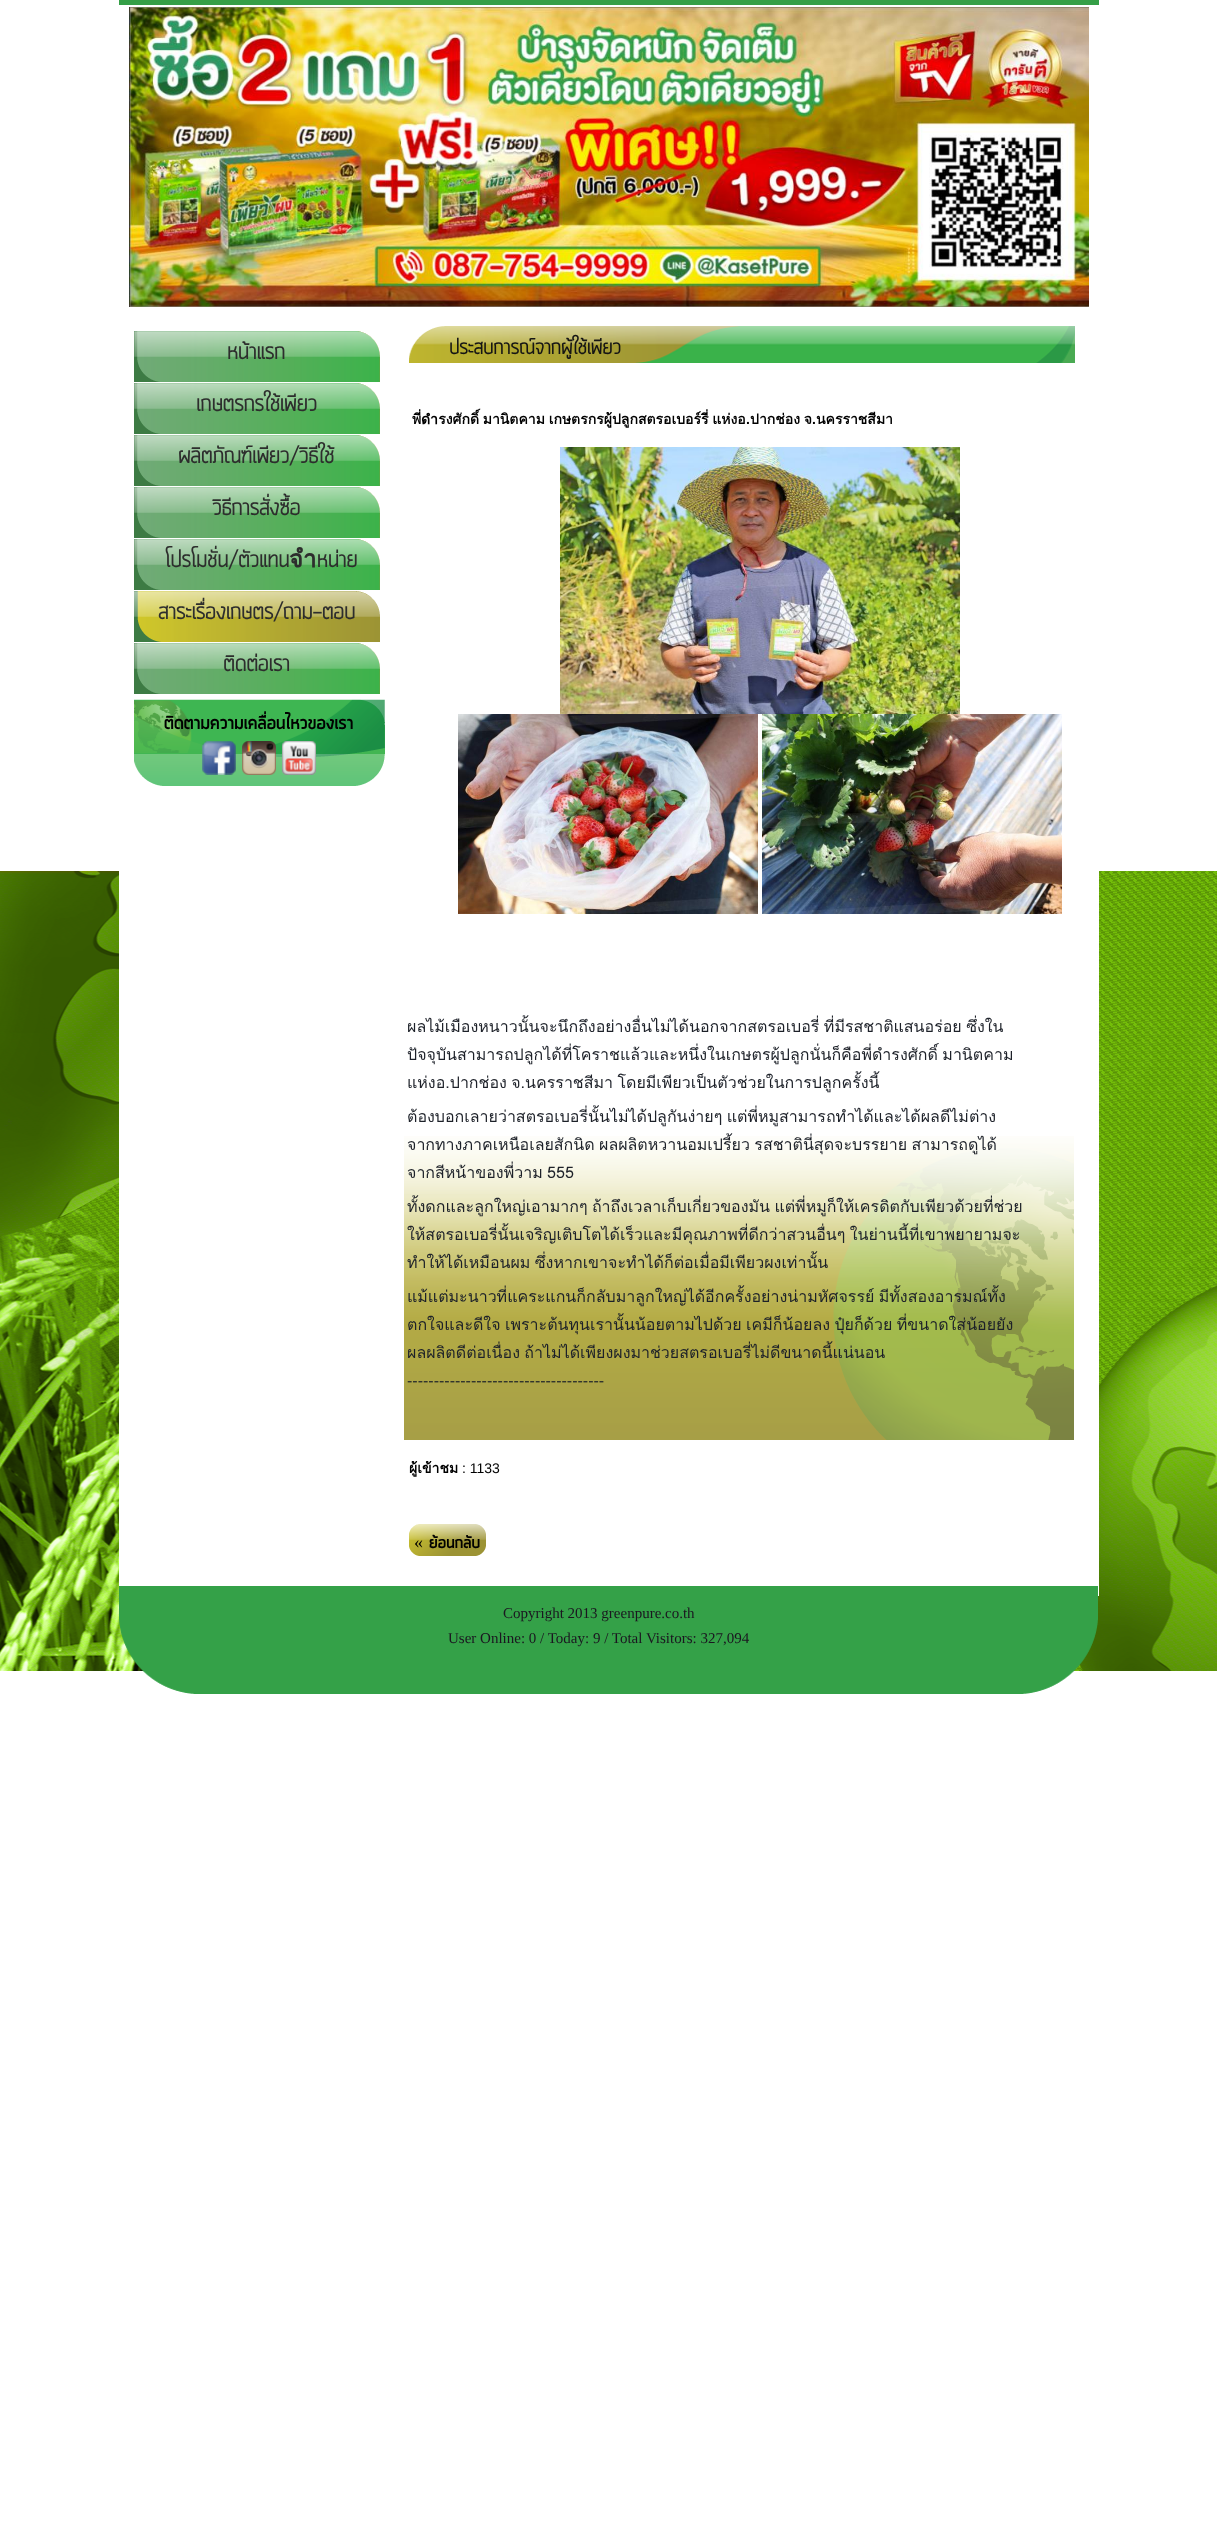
<svg xmlns="http://www.w3.org/2000/svg" width="1217" height="2541" viewBox="0 0 1217 2541">
  <rect width="100%" height="100%" fill="#ffffff"/>
  <image x="0" y="871" width="1217" height="800" href="img1.png"/>
  <rect x="119" y="871" width="980" height="725" fill="#ffffff"/>
  <rect x="119" y="0" width="980" height="5" fill="#359f47"/>
  <image x="129" y="7" width="960" height="300" href="img2.png"/>
  <image x="134" y="331" width="246" height="51" href="img3.png"/>
  <text x="227" y="359" font-family="'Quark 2'" font-size="24" font-weight="bold" fill="#2d2d2d">หน้าแรก</text>
  <image x="134" y="383" width="246" height="51" href="img3.png"/>
  <text x="196" y="411" font-family="'Quark 2'" font-size="24" font-weight="bold" fill="#2d2d2d">เกษตรกรใช้เพียว</text>
  <image x="134" y="435" width="246" height="51" href="img3.png"/>
  <text x="178" y="463" font-family="'Quark 2'" font-size="24" font-weight="bold" fill="#2d2d2d">ผลิตภัณฑ์เพียว/วิธีใช้</text>
  <image x="134" y="487" width="246" height="51" href="img3.png"/>
  <text x="212" y="515" font-family="'Quark 2'" font-size="24" font-weight="bold" fill="#2d2d2d">วิธีการสั่งซื้อ</text>
  <image x="134" y="539" width="246" height="51" href="img3.png"/>
  <text x="165" y="567" font-family="'Quark 2'" font-size="24" font-weight="bold" fill="#2d2d2d">โปรโมชั่น/ตัวแทนจำหน่าย</text>
  <image x="134" y="591" width="246" height="51" href="img4.png"/>
  <text x="158" y="619" font-family="'Quark 2'" font-size="24" font-weight="bold" fill="#2d2d2d">สาระเรื่องเกษตร/ถาม-ตอบ</text>
  <image x="134" y="643" width="246" height="51" href="img3.png"/>
  <text x="223" y="671" font-family="'Quark 2'" font-size="24" font-weight="bold" fill="#2d2d2d">ติดต่อเรา</text>
  <image x="134" y="699" width="251" height="87" href="img5.png"/>
  <text x="164" y="729" font-family="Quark" font-size="20" font-weight="bold" fill="#000000">ติดตามความเคลื่อนไหวของเรา</text>
  <image x="202" y="741" width="34" height="34" href="img6.png"/>
  <image x="242" y="741" width="34" height="34" href="img7.png"/>
  <image x="282" y="741" width="34" height="34" href="img8.png"/>
  <image x="409" y="326" width="666" height="37" href="img9.png"/>
  <text x="449" y="354" font-family="'Quark 2'" font-size="22" font-weight="bold" fill="#151515">ประสบการณ์จากผู้ใช้เพียว</text>
  <text x="412" y="424" word-spacing="-1" font-family="Loma" font-size="14" font-weight="bold" fill="#000000">พี่ดำรงศักดิ์ มานิตคาม เกษตรกรผู้ปลูกสตรอเบอร์รี่ แห่งอ</text>
  <text x="746" y="424" font-family="Liberation Sans" font-size="14" font-weight="bold" fill="#000000">.</text>
  <text x="750" y="424" word-spacing="-1" font-family="Loma" font-size="14" font-weight="bold" fill="#000000">ปากช่อง จ</text>
  <text x="812" y="424" font-family="Liberation Sans" font-size="14" font-weight="bold" fill="#000000">.</text>
  <text x="816" y="424" font-family="Loma" font-size="14" font-weight="bold" fill="#000000">นครราชสีมา</text>
  <image x="560" y="447" width="400" height="267" href="img10.png"/>
  <image x="458" y="714" width="300" height="200" href="img11.png"/>
  <image x="762" y="714" width="300" height="200" href="img12.png"/>
  <image x="404" y="1136" width="670" height="304" href="img13.png"/>
  <text x="407" y="1032" word-spacing="-1" font-family="Loma" font-size="16" fill="#1d2129">ผลไม้เมืองหนาวนั้นจะนึกถึงอย่างอื่นไม่ได้นอกจากสตรอเบอรี่ ที่มีรสชาติแสนอร่อย ซึ่งใน</text>
  <text x="407" y="1060" word-spacing="-1" font-family="Loma" font-size="16" fill="#1d2129">ปัจจุบันสามารถปลูกได้ที่โคราชแล้วและหนึ่งในเกษตรผู้ปลูกนั่นก็คือพี่ดำรงศักดิ์ มานิตคาม</text>
  <text x="407" y="1088" word-spacing="-1" font-family="Loma" font-size="16" fill="#1d2129">แห่งอ.ปากช่อง จ.นครราชสีมา โดยมีเพียวเป็นตัวช่วยในการปลูกครั้งนี้</text>
  <text x="407" y="1122" word-spacing="-1" font-family="Loma" font-size="16" fill="#1d2129">ต้องบอกเลายว่าสตรอเบอรี่นั้นไม่ได้ปลูกันง่ายๆ แต่พี่หมูสามารถทำได้และได้ผลดีไม่ต่าง</text>
  <text x="407" y="1150" word-spacing="-1" font-family="Loma" font-size="16" fill="#1d2129">จากทางภาคเหนือเลยสักนิด ผลผลิตหวานอมเปรี้ยว รสชาตินี่สุดจะบรรยาย สามารถดูได้</text>
  <text x="407" y="1178" word-spacing="-1" font-family="Loma" font-size="16" fill="#1d2129">จากสีหน้าของพี่วาม 555</text>
  <text x="407" y="1212" word-spacing="-1" font-family="Loma" font-size="16" fill="#1d2129">ทั้งดกและลูกใหญ่เอามากๆ ถ้าถึงเวลาเก็บเกี่ยวของมัน แต่พี่หมูก</text>
  <text x="836" y="1212" font-family="Loma" font-size="16" fill="#1d2129">็ให้เครดิตกับเพียวด้วยที่ช่วย</text>
  <text x="407" y="1240" word-spacing="-1" font-family="Loma" font-size="16" fill="#1d2129">ให้สตรอเบอรี่นั้นเจริญเติบโตได้เร็วและมีคุณภาพที่ดีกว่าสวนอื่นๆ ในย่านนี้ที่เขาพยายามจะ</text>
  <text x="407" y="1268" word-spacing="-1" font-family="Loma" font-size="16" fill="#1d2129">ทำให้ได้เหมือนผม ซึ่งหากเขาจะทำได้ก็ต่อเมื่อมีเพียวผงเท่านั้น</text>
  <text x="407" y="1302" word-spacing="-1" font-family="Loma" font-size="16" fill="#1d2129">แม้แต่มะนาวที่แคระแกนก็กลับมาลูกใหญ่ได้อีกครั้งอย่างน่ามหัศจรรย์ มีทั้งสองอารมณ์ทั้ง</text>
  <text x="407" y="1330" word-spacing="-1" font-family="Loma" font-size="16" fill="#1d2129">ตกใจและดีใจ เพราะต้นทุนเรานั้นน้อยตามไปด้วย เคมีก็น้อยลง ปุ๋ยก็ด้วย ที่ขนาดใส่น้อยยัง</text>
  <text x="407" y="1358" word-spacing="-1" font-family="Loma" font-size="16" fill="#1d2129">ผลผลิตดีต่อเนื่อง ถ้าไม่ได้เพียงผงมาช่วยสตรอเบอรี่ไม่ดีขนาดนี้แน่นอน</text>
  <text x="407" y="1386" font-family="Liberation Sans" font-size="16" fill="#1d2129">-------------------------------------</text>
  <text x="409" y="1473" font-family="Loma" font-size="14" font-weight="bold" fill="#000000">ผู้เข้าชม</text>
  <text x="462" y="1473" font-family="Liberation Sans" font-size="14" fill="#000000">: 1133</text>
  <image x="409" y="1524" width="77" height="32" href="img14.png"/>
  <text x="414" y="1548" font-family="Liberation Serif" font-size="18" fill="#000000">«</text>
  <text x="429" y="1548" font-family="Quark" font-size="18" font-weight="bold" fill="#000000">ย้อนกลับ</text>
  <image x="119" y="1586" width="979" height="108" href="img15.png"/>
  <text x="503" y="1618" font-family="Liberation Serif" font-size="15" fill="#1b1620">Copyright 2013 greenpure.co.th</text>
  <text x="448" y="1643" font-family="Liberation Serif" font-size="15" fill="#1b1620">User Online: 0 / Today: 9 / Total Visitors: 327,094</text>
</svg>
